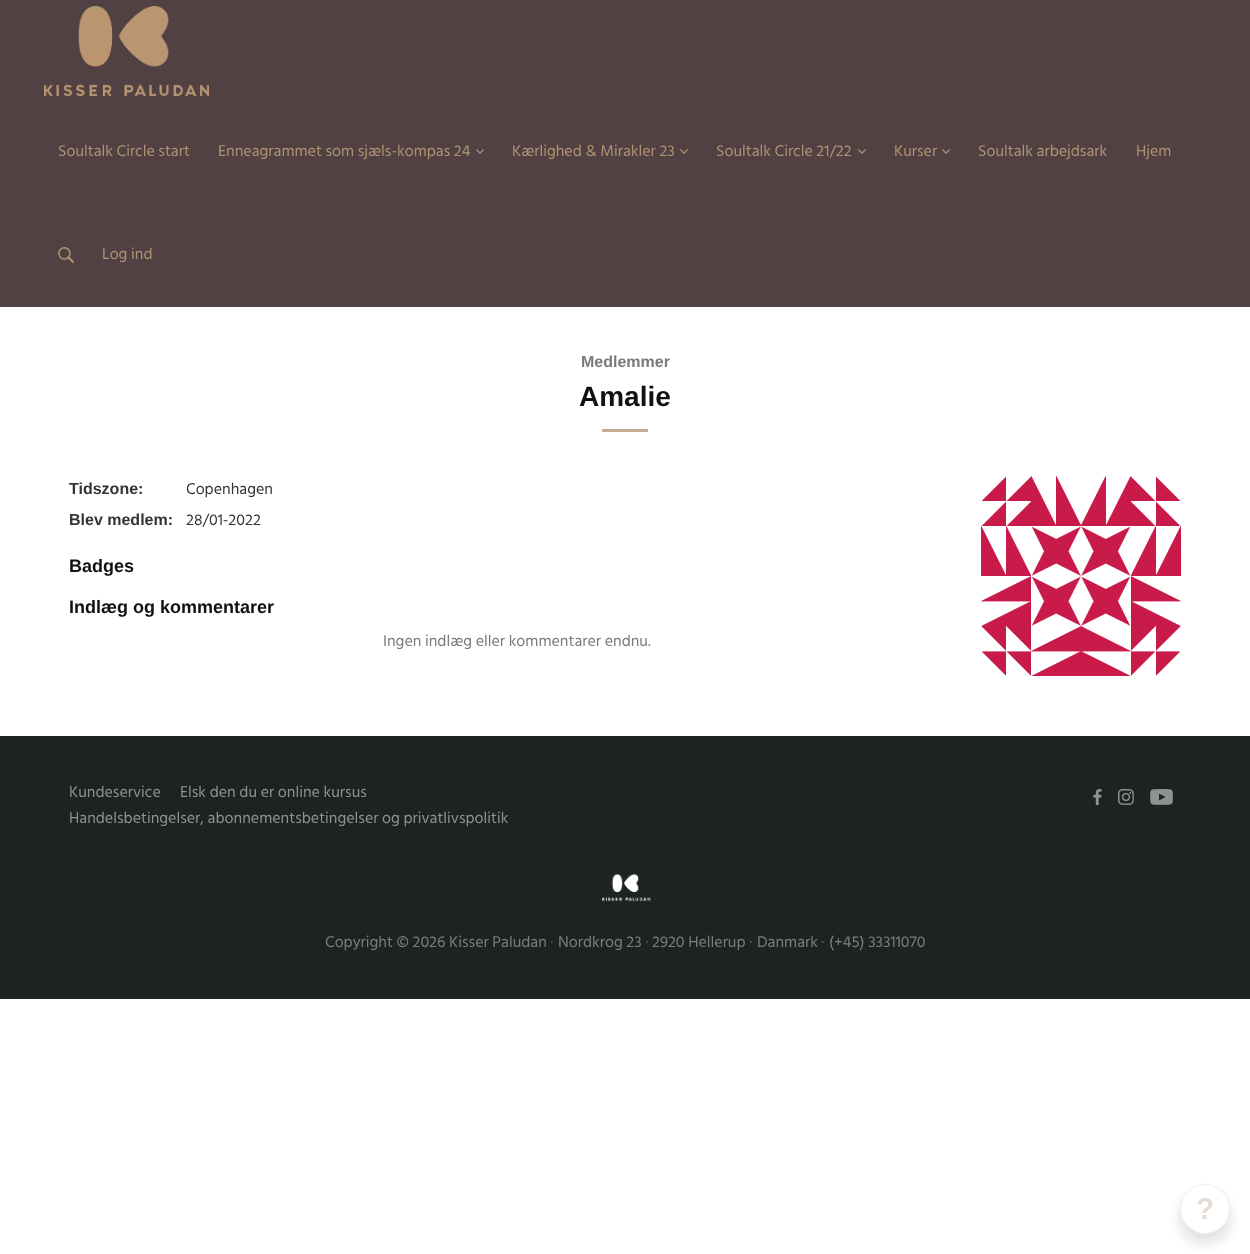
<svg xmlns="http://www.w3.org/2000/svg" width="1250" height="1254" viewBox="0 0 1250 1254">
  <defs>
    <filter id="blur1" x="-50%" y="-200%" width="200%" height="500%"><feGaussianBlur stdDeviation="6"/></filter>
  </defs>
  <rect width="100%" height="100%" fill="#ffffff"/>
  <rect x="0" y="0" width="1250" height="307" fill="#524142"/>
  <image x="44" y="6" width="165" height="90" href="img1.png"/>
  <text x="58" y="156" font-family="Hind Siliguri" font-size="16" fill="#ae9472">Soultalk Circle start</text>
  <text x="218" y="156" font-family="Hind Siliguri" font-size="16" fill="#ae9472">Enneagrammet som sjæls-kompas 24</text>
  <image x="476" y="149" width="8" height="5" href="img2.png"/>
  <text x="512" y="156" font-family="Hind Siliguri" font-size="16" fill="#ae9472">Kærlighed &amp; Mirakler 23</text>
  <image x="680" y="149" width="8" height="5" href="img2.png"/>
  <text x="716" y="156" font-family="Hind Siliguri" font-size="16" fill="#ae9472">Soultalk Circle 21/22</text>
  <image x="858" y="149" width="8" height="5" href="img2.png"/>
  <text x="894" y="156" font-family="Hind Siliguri" font-size="16" fill="#ae9472">Kurser</text>
  <image x="942" y="149" width="8" height="5" href="img2.png"/>
  <text x="978" y="156" font-family="Hind Siliguri" font-size="16" fill="#ae9472">Soultalk arbejdsark</text>
  <text x="1136" y="156" font-family="Hind Siliguri" font-size="16" fill="#ae9472">Hjem</text>
  <image x="58" y="247" width="16" height="16" href="img3.png"/>
  <text x="102" y="259" font-family="Hind Siliguri" font-size="16" fill="#ae9472">Log ind</text>
  <text x="581" y="367" font-family="Liberation Sans" font-size="16" font-weight="bold" fill="#7a7a7a">Medlemmer</text>
  <text x="579" y="406" font-family="Liberation Sans" font-size="28" font-weight="bold" fill="#111111">Amalie</text>
  <rect x="602" y="429" width="46" height="3" fill="#c4af95"/>
  <text x="69" y="494" font-family="Liberation Sans" font-size="16" font-weight="bold" fill="#343434">Tidszone:</text>
  <text x="186" y="494" font-family="Hind Siliguri" font-size="16" fill="#343434">Copenhagen</text>
  <text x="69" y="525" font-family="Liberation Sans" font-size="16" font-weight="bold" fill="#343434">Blev medlem:</text>
  <text x="186" y="525" font-family="Hind Siliguri" font-size="16" fill="#343434">28/01-2022</text>
  <image x="981" y="476" width="200" height="200" href="img4.png"/>
  <text x="69" y="572" font-family="Liberation Sans" font-size="18" font-weight="bold" fill="#111111">Badges</text>
  <text x="69" y="613" font-family="Liberation Sans" font-size="18" font-weight="bold" fill="#111111">Indlæg og kommentarer</text>
  <text x="383" y="646" font-family="Hind Siliguri" font-size="16" fill="#7a7a7a">Ingen indlæg eller kommentarer endnu.</text>
  <rect x="0" y="736" width="1250" height="263" fill="#1e2322"/>
  <text x="69" y="797" font-family="Hind Siliguri" font-size="16" fill="#8c9391">Kundeservice</text>
  <text x="180" y="797" font-family="Hind Siliguri" font-size="16" fill="#8c9391">Elsk den du er online kursus</text>
  <text x="69" y="823" font-family="Hind Siliguri" font-size="16" fill="#8c9391">Handelsbetingelser, abonnementsbetingelser og privatlivspolitik</text>
  <image x="1093" y="789" width="9" height="16" href="img5.png"/>
  <image x="1118" y="789" width="16" height="16" href="img6.png"/>
  <image x="1150" y="789" width="23" height="16" href="img7.png"/>
  <image x="602" y="873" width="49" height="29" href="img8.png"/>
  <text x="325" y="947" font-family="Hind Siliguri" font-size="16" fill="#78807d">Copyright © 2026 Kisser Paludan</text>
  <text x="550" y="947" font-family="Hind Siliguri" font-size="16" fill="#5a615f">·</text>
  <text x="558" y="947" font-family="Hind Siliguri" font-size="16" fill="#78807d">Nordkrog 23</text>
  <text x="645" y="947" font-family="Hind Siliguri" font-size="16" fill="#5a615f">·</text>
  <text x="652" y="947" font-family="Hind Siliguri" font-size="16" fill="#78807d">2920 Hellerup</text>
  <text x="749" y="947" font-family="Hind Siliguri" font-size="16" fill="#5a615f">·</text>
  <text x="757" y="947" font-family="Hind Siliguri" font-size="16" fill="#78807d">Danmark</text>
  <text x="821" y="947" font-family="Hind Siliguri" font-size="16" fill="#5a615f">·</text>
  <text x="829" y="947" font-family="Hind Siliguri" font-size="16" fill="#78807d">(+45) 33311070</text>
  <rect x="1180" y="1193" width="50" height="50" rx="25" fill="#22262f" fill-opacity="0.15" filter="url(#blur1)"/>
  <circle cx="1205" cy="1209" r="24.5" fill="#ffffff" stroke="#edeef1"/>
  <text x="1196" y="1219" font-family="Liberation Sans" font-size="30" font-weight="bold" fill="#e7dbd2">?</text>
</svg>
